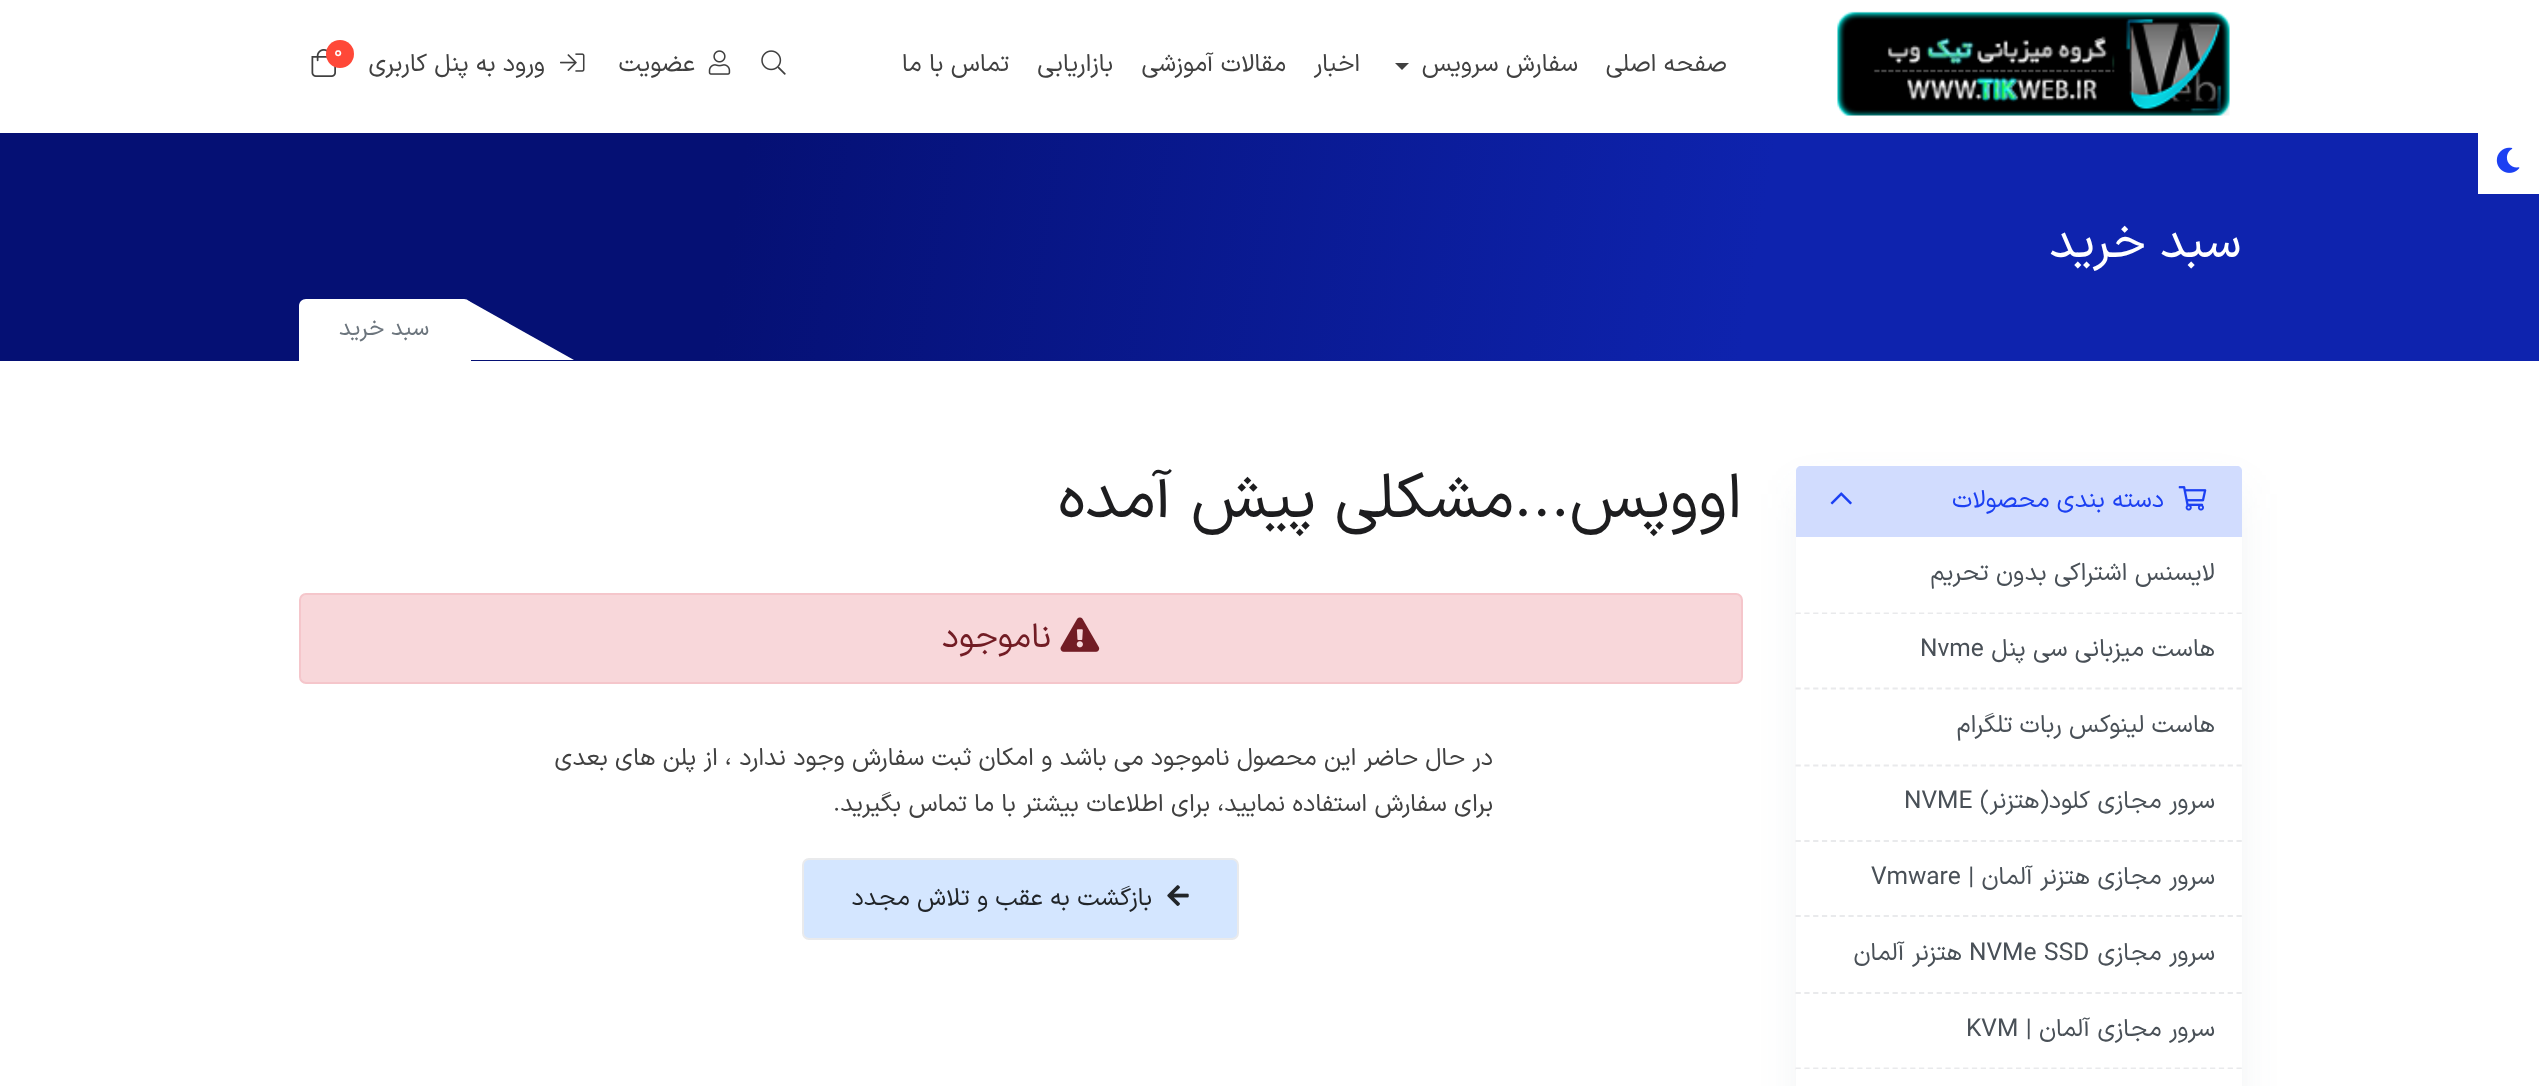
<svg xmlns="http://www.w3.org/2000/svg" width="2539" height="1086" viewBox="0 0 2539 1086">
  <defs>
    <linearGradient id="g1" gradientUnits="userSpaceOnUse" x1="2524" y1="452" x2="15" y2="41"><stop offset="0.31" stop-color="#0e23ae"/><stop offset="0.71" stop-color="#051074"/></linearGradient>
    <filter id="blur1" x="-50%" y="-200%" width="200%" height="500%"><feGaussianBlur stdDeviation="21"/></filter>
  </defs>
  <rect width="100%" height="100%" fill="#ffffff"/>
  <image x="1837" y="11" width="393" height="105" href="img1.png"/>
  <text x="1727" y="71" font-family="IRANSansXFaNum" font-size="24.5" direction="rtl" fill="#404040">صفحه اصلی</text>
  <text x="1578" y="71" font-family="IRANSansXFaNum" font-size="24.5" direction="rtl" fill="#404040">سفارش سرویس</text>
  <path d="M1395 63H1409L1402 70Z" fill="#404040"/>
  <text x="1360" y="71" font-family="IRANSansXFaNum" font-size="24.5" direction="rtl" fill="#404040">اخبار</text>
  <text x="1286" y="71" font-family="IRANSansXFaNum" font-size="24.5" direction="rtl" fill="#404040">مقالات آموزشی</text>
  <text x="1113" y="71" font-family="IRANSansXFaNum" font-size="24.5" direction="rtl" fill="#404040">بازاریابی</text>
  <text x="1009" y="71" font-family="IRANSansXFaNum" font-size="24.5" direction="rtl" fill="#404040">تماس با ما</text>
  <image x="761" y="50" width="25" height="25" href="img2.png"/>
  <image x="708" y="50" width="23" height="25" href="img3.png"/>
  <text x="695" y="71" font-family="IRANSansXFaNum" font-size="24.5" direction="rtl" fill="#404040">عضویت</text>
  <image x="560" y="53" width="25" height="19" href="img4.png"/>
  <text x="545" y="71" font-family="IRANSansXFaNum" font-size="24.5" direction="rtl" fill="#404040">ورود به پنل کاربری</text>
  <image x="311" y="49" width="25" height="28" href="img5.png"/>
  <circle cx="340" cy="54" r="14" fill="#ff4838"/>
  <text x="334" y="57" font-family="IRANSansXFaNum" font-size="19" fill="#ffffff">0</text>
  <rect x="0" y="133" width="2539" height="228" fill="url(#g1)"/>
  <rect x="2478" y="133" width="61" height="61" fill="#ffffff"/>
  <image x="2496" y="147" width="24" height="26" href="img6.png"/>
  <text x="2241" y="257" font-family="IRANSansXFaNum" font-size="49" direction="rtl" fill="#ffffff">سبد خرید</text>
  <path d="M306 299H464C468 299 471 302 471 306V361H299V306C299 302 302 299 306 299Z" fill="#ffffff"/>
  <path d="M574 360H364L469 301Z" fill="#ffffff"/>
  <text x="429" y="335" font-family="IRANSansXFaNum" font-size="23" direction="rtl" fill="#6c757d">سبد خرید</text>
  <rect x="1803" y="494" width="432" height="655" fill="#919eab" fill-opacity="0.16" filter="url(#blur1)"/>
  <path d="M1801 466H2237C2240 466 2242 468 2242 471V537H1796V471C1796 468 1798 466 1801 466Z" fill="#d1dcfe"/>
  <image x="2178" y="486" width="29" height="25" href="img7.png"/>
  <text x="2164" y="507" font-family="IRANSansXFaNum" font-size="24.5" direction="rtl" fill="#1c40f2">دسته بندی محصولات</text>
  <image x="1830" y="492" width="22" height="13" href="img8.png"/>
  <rect x="1796" y="537" width="446" height="77" fill="#ffffff"/>
  <path d="M1795.5 613.5H2242" fill="none" stroke="#e9eaec" stroke-width="1.8" stroke-dasharray="5.25 3.57"/>
  <text x="2215" y="580" font-family="IRANSansXFaNum" font-size="24.5" direction="rtl" fill="#495057">لایسنس اشتراکی بدون تحریم</text>
  <rect x="1796" y="614" width="446" height="455" fill="#ffffff"/>
  <path d="M1795.5 688.5H2242" fill="none" stroke="#e9eaec" stroke-width="1.8" stroke-dasharray="5.25 3.57"/>
  <text x="2215" y="656" font-family="IRANSansXFaNum" font-size="24.5" direction="rtl" fill="#495057">هاست میزبانی سی پنل</text>
  <text x="1920" y="656" font-family="IRANSansXFaNum" font-size="24.5" fill="#495057">Nvme</text>
  <path d="M1795.5 765.5H2242" fill="none" stroke="#e9eaec" stroke-width="1.8" stroke-dasharray="5.25 3.57"/>
  <text x="2215" y="732" font-family="IRANSansXFaNum" font-size="24.5" direction="rtl" fill="#495057">هاست لینوکس ربات تلگرام</text>
  <path d="M1795.5 841H2242" fill="none" stroke="#e9eaec" stroke-width="1.8" stroke-dasharray="5.25 3.57"/>
  <text x="2215" y="808" font-family="IRANSansXFaNum" font-size="24.5" direction="rtl" fill="#495057">سرور مجازی کلود(هتزنر)</text>
  <text x="1904" y="808" font-family="IRANSansXFaNum" font-size="24.5" fill="#495057">NVME</text>
  <path d="M1795.5 916H2242" fill="none" stroke="#e9eaec" stroke-width="1.8" stroke-dasharray="5.25 3.57"/>
  <text x="2215" y="884" font-family="IRANSansXFaNum" font-size="24.5" direction="rtl" fill="#495057">سرور مجازی هتزنر آلمان |</text>
  <text x="1871" y="884" font-family="IRANSansXFaNum" font-size="24.5" fill="#495057">Vmware</text>
  <path d="M1795.5 993H2242" fill="none" stroke="#e9eaec" stroke-width="1.8" stroke-dasharray="5.25 3.57"/>
  <text x="2215" y="960" font-family="IRANSansXFaNum" font-size="24.5" direction="rtl" fill="#495057">سرور مجازی</text>
  <text x="1969" y="960" font-family="IRANSansXFaNum" font-size="24.5" fill="#495057">NVMe SSD</text>
  <text x="1962" y="960" font-family="IRANSansXFaNum" font-size="24.5" direction="rtl" fill="#495057">هتزنر آلمان</text>
  <path d="M1795.5 1068.5H2242" fill="none" stroke="#e9eaec" stroke-width="1.8" stroke-dasharray="5.25 3.57"/>
  <text x="2215" y="1036" font-family="IRANSansXFaNum" font-size="24.5" direction="rtl" fill="#495057">سرور مجازی آلمان |</text>
  <text x="1966" y="1036" font-family="IRANSansXFaNum" font-size="24.5" fill="#495057">KVM</text>
  <rect x="1796" y="1069" width="446" height="17" fill="#ffffff"/>
  <text x="1742" y="517" font-family="IRANSansXFaNum" font-size="63" direction="rtl" fill="#1d1d1f">اووپس...مشکلی پیش آمده</text>
  <rect x="300" y="594" width="1442" height="89" rx="6" fill="#f8d7da" stroke="#f5c6cb" stroke-width="2"/>
  <image x="1060" y="617" width="40" height="35" href="img9.png"/>
  <text x="1051" y="647" font-family="IRANSansXFaNum" font-size="34" direction="rtl" fill="#721c24">ناموجود</text>
  <text x="1493" y="765" font-family="IRANSansXFaNum" font-size="24.5" direction="rtl" fill="#404040">در حال حاضر این محصول ناموجود می باشد و امکان ثبت سفارش وجود ندارد ، از پلن های بعدی</text>
  <text x="1493" y="811" font-family="IRANSansXFaNum" font-size="24.5" direction="rtl" fill="#404040">برای سفارش استفاده نمایید، برای اطلاعات بیشتر با ما تماس بگیرید.</text>
  <rect x="803" y="859" width="435" height="80" rx="6" fill="#d4e6ff" stroke="#e9eaec" stroke-width="2"/>
  <image x="1167" y="885" width="22" height="21" href="img10.png"/>
  <text x="1152" y="905" font-family="IRANSansXFaNum" font-size="24.5" direction="rtl" fill="#212529">بازگشت به عقب و تلاش مجدد</text>
</svg>
